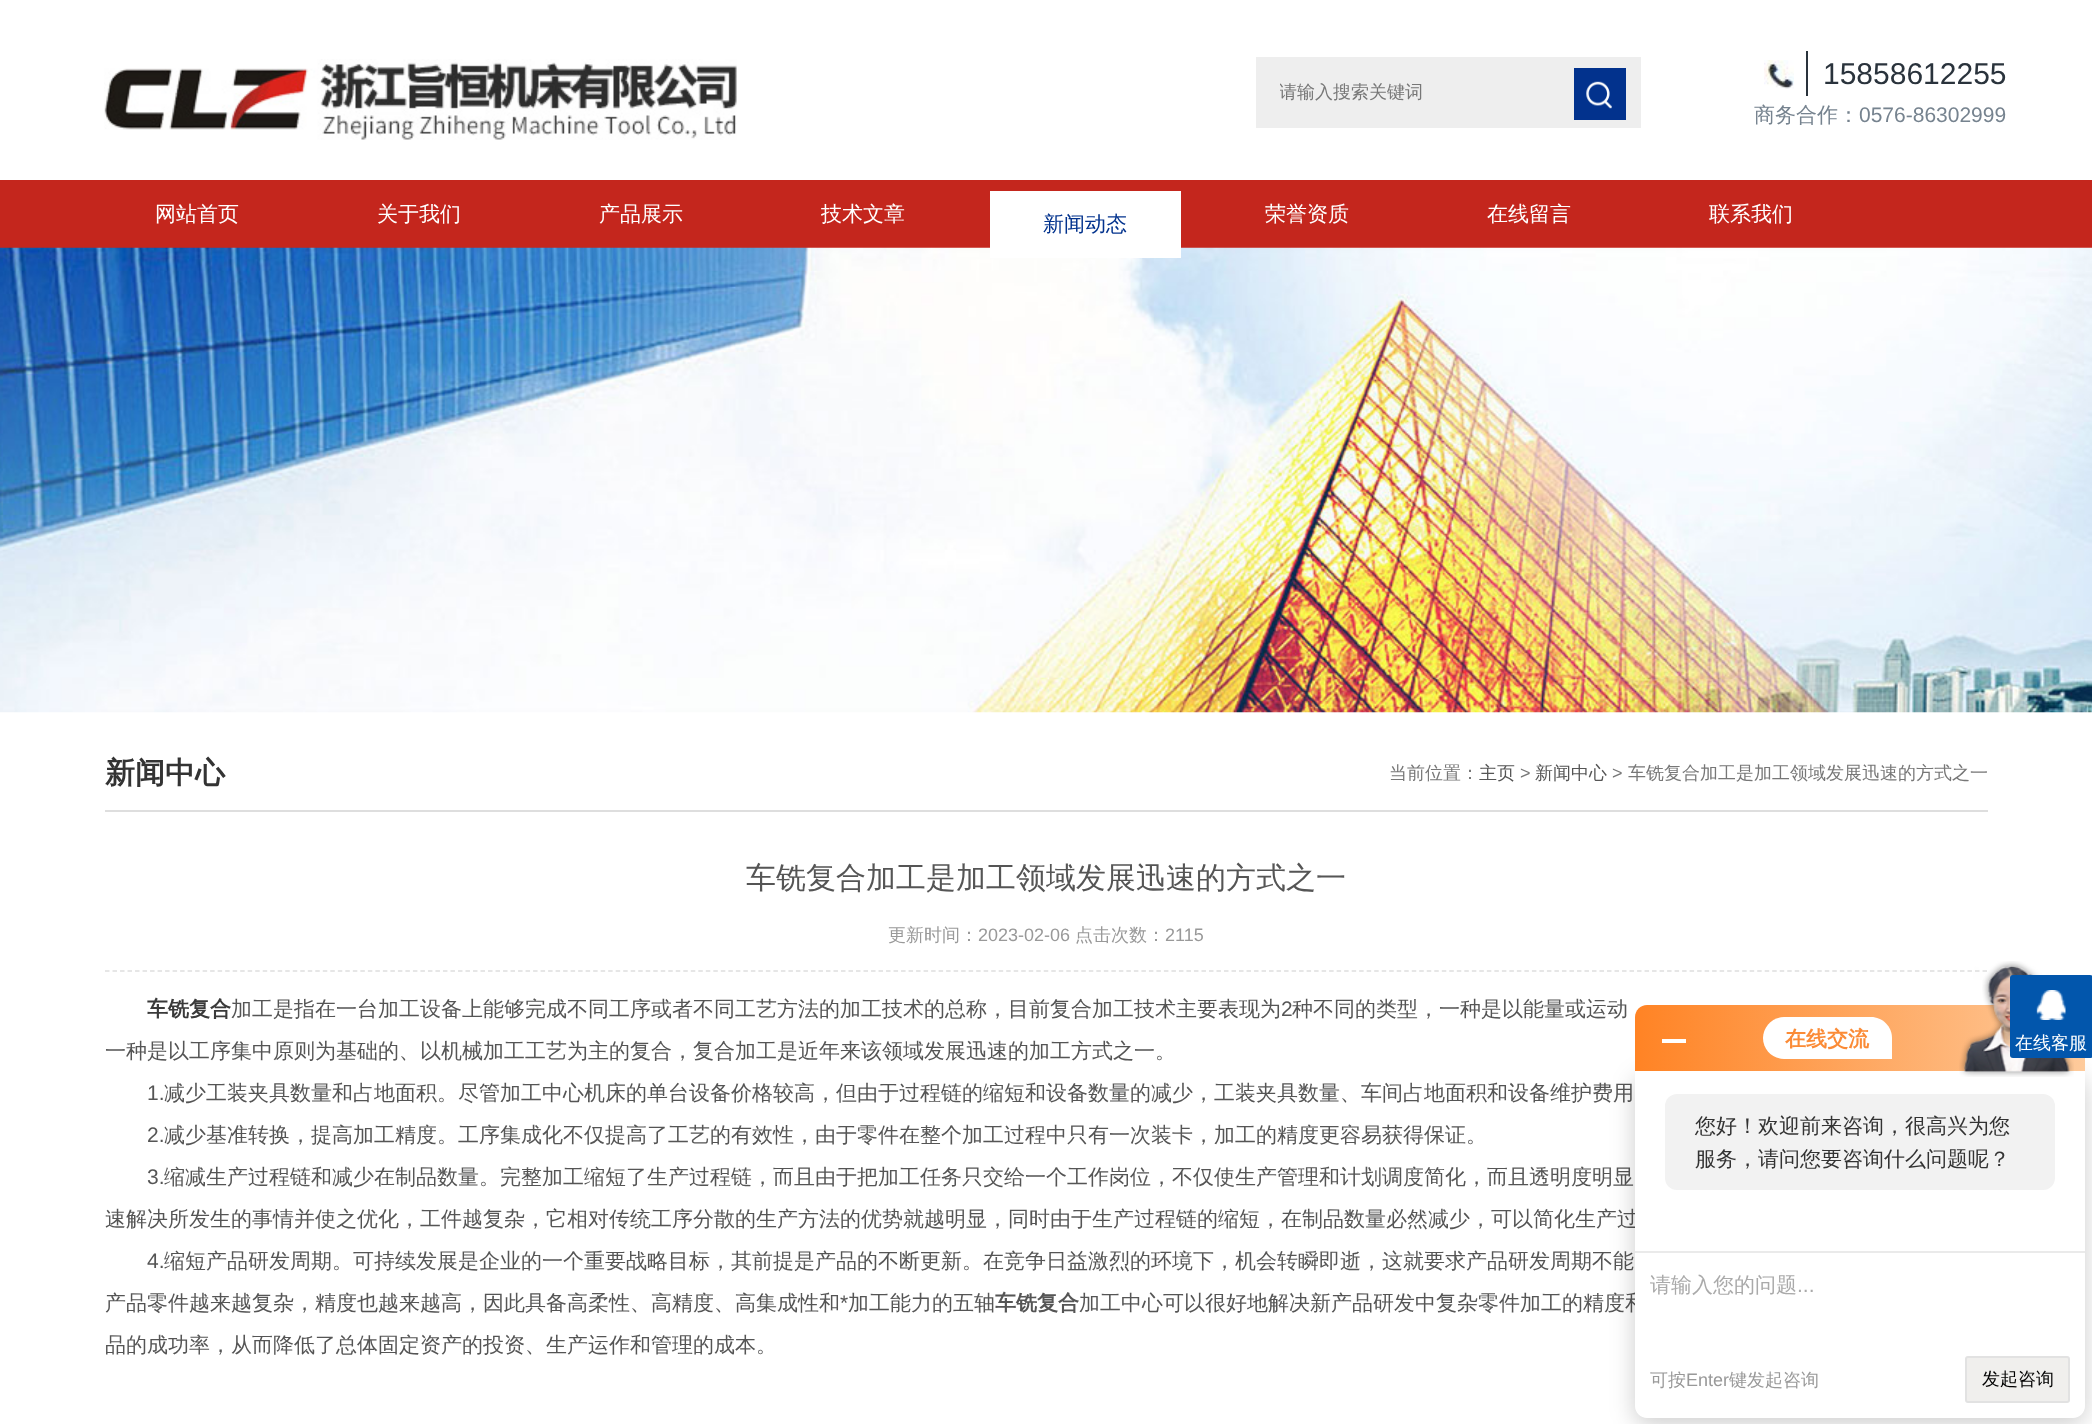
<svg xmlns="http://www.w3.org/2000/svg" width="2092" height="1424" viewBox="0 0 2092 1424">
  <defs>
    <clipPath id="clip1"><rect x="1280" y="80" width="360" height="25"/></clipPath>
    <filter id="blur1" x="-50%" y="-200%" width="200%" height="500%"><feGaussianBlur stdDeviation="12"/></filter>
    <linearGradient id="g1" gradientUnits="userSpaceOnUse" x1="1635" y1="1038" x2="2085" y2="1038"><stop offset="0" stop-color="#ff8324"/><stop offset="1" stop-color="#fecb9c"/></linearGradient>
  </defs>
  <rect width="100%" height="100%" fill="#ffffff"/>
  <image x="104" y="59" width="633" height="81" href="img1.png"/>
  <rect x="1256" y="57" width="385" height="71" fill="#eeeeee"/>
  <g clip-path="url(#clip1)">
    <text x="1279" y="98" font-family="WenQuanYi Zen Hei" font-size="18" font-weight="500" fill="#777777">请输入搜索关键词</text>
  </g>
  <rect x="1574" y="68" width="52" height="52" fill="#02328d"/>
  <image x="1586" y="81" width="26" height="28" href="img2.png"/>
  <image x="1764" y="60" width="30" height="29" href="img3.png"/>
  <rect x="1806" y="51" width="2" height="45" fill="#2a333c"/>
  <text x="1823" y="84" font-family="Liberation Sans" font-size="30" fill="#2a333c">15858612255</text>
  <text x="1754" y="122" font-family="WenQuanYi Zen Hei" font-size="21" font-weight="500" fill="#76838f">商务合作：</text>
  <text x="1859" y="122" font-family="Liberation Sans" font-size="21" fill="#76838f">0576-86302999</text>
  <rect x="0" y="180" width="2092" height="68" fill="#c4261d"/>
  <text x="155" y="221" font-family="WenQuanYi Zen Hei" font-size="21" font-weight="500" fill="#ffffff">网站首页</text>
  <text x="377" y="221" font-family="WenQuanYi Zen Hei" font-size="21" font-weight="500" fill="#ffffff">关于我们</text>
  <text x="599" y="221" font-family="WenQuanYi Zen Hei" font-size="21" font-weight="500" fill="#ffffff">产品展示</text>
  <text x="821" y="221" font-family="WenQuanYi Zen Hei" font-size="21" font-weight="500" fill="#ffffff">技术文章</text>
  <image x="0" y="247" width="2092" height="466" href="img4.png"/>
  <rect x="990" y="191" width="191" height="67" fill="#ffffff"/>
  <text x="1043" y="231" font-family="WenQuanYi Zen Hei" font-size="21" font-weight="500" fill="#02328d">新闻动态</text>
  <text x="1265" y="221" font-family="WenQuanYi Zen Hei" font-size="21" font-weight="500" fill="#ffffff">荣誉资质</text>
  <text x="1487" y="221" font-family="WenQuanYi Zen Hei" font-size="21" font-weight="500" fill="#ffffff">在线留言</text>
  <text x="1709" y="221" font-family="WenQuanYi Zen Hei" font-size="21" font-weight="500" fill="#ffffff">联系我们</text>
  <rect x="105" y="810" width="1883" height="2" fill="#dedede"/>
  <text x="105" y="783" font-family="WenQuanYi Zen Hei" font-size="30" font-weight="bold" fill="#333333">新闻中心</text>
  <text x="1389" y="779" font-family="WenQuanYi Zen Hei" font-size="18" font-weight="500" fill="#777777">当前位置：</text>
  <text x="1479" y="779" font-family="WenQuanYi Zen Hei" font-size="18" font-weight="500" fill="#555555">主页</text>
  <text x="1520" y="779" font-family="Liberation Sans" font-size="18" fill="#777777">&gt;</text>
  <text x="1535" y="779" font-family="WenQuanYi Zen Hei" font-size="18" font-weight="500" fill="#555555">新闻中心</text>
  <text x="1612" y="779" font-family="Liberation Sans" font-size="18" fill="#777777">&gt;</text>
  <text x="1628" y="779" font-family="WenQuanYi Zen Hei" font-size="18" font-weight="500" fill="#777777">车铣复合加工是加工领域发展迅速的方式之一</text>
  <text x="746" y="888" font-family="WenQuanYi Zen Hei" font-size="30" font-weight="500" fill="#555555">车铣复合加工是加工领域发展迅速的方式之一</text>
  <path d="M105 971H1987.5" fill="none" stroke="#dedede" stroke-width="1.5" stroke-dasharray="4.5 3.01"/>
  <text x="888" y="941" font-family="WenQuanYi Zen Hei" font-size="18" font-weight="500" fill="#999999">更新时间：</text>
  <text x="978" y="941" font-family="Liberation Sans" font-size="18" fill="#999999">2023-02-06</text>
  <text x="1075" y="941" font-family="WenQuanYi Zen Hei" font-size="18" font-weight="500" fill="#999999">点击次数：</text>
  <text x="1165" y="941" font-family="Liberation Sans" font-size="18" fill="#999999">2115</text>
  <text x="147" y="1016" font-family="WenQuanYi Zen Hei" font-size="21" font-weight="bold" fill="#3a3a3a">车铣复合</text>
  <text x="231" y="1016" font-family="WenQuanYi Zen Hei" font-size="21" font-weight="500" fill="#555555">加工是指在一台加工设备上能够完成不同工序或者不同工艺方法的加工技术的总称，目前复合加工技术主要表现为</text>
  <text x="1281" y="1016" font-family="Liberation Sans" font-size="21" fill="#555555">2</text>
  <text x="1292" y="1016" font-family="WenQuanYi Zen Hei" font-size="21" font-weight="500" fill="#555555">种不同的类型，一种是以能量或运动</text>
  <text x="105" y="1058" font-family="WenQuanYi Zen Hei" font-size="21" font-weight="500" fill="#555555">一种是以工序集中原则为基础的、以机械加工工艺为主的复合，复合加工是近年来该领域发展迅速的加工方式之一。</text>
  <text x="147" y="1100" font-family="Liberation Sans" font-size="21" fill="#555555">1.</text>
  <text x="164" y="1100" font-family="WenQuanYi Zen Hei" font-size="21" font-weight="500" fill="#555555">减少工装夹具数量和占地面积。尽管加工中心机床的单台设备价格较高，但由于过程链的缩短和设备数量的减少，工装夹具数量、车间占地面积和设备维护费用</text>
  <text x="147" y="1142" font-family="Liberation Sans" font-size="21" fill="#555555">2.</text>
  <text x="164" y="1142" font-family="WenQuanYi Zen Hei" font-size="21" font-weight="500" fill="#555555">减少基准转换，提高加工精度。工序集成化不仅提高了工艺的有效性，由于零件在整个加工过程中只有一次装卡，加工的精度更容易获得保证。</text>
  <text x="147" y="1184" font-family="Liberation Sans" font-size="21" fill="#555555">3.</text>
  <text x="164" y="1184" font-family="WenQuanYi Zen Hei" font-size="21" font-weight="500" fill="#555555">缩减生产过程链和减少在制品数量。完整加工缩短了生产过程链，而且由于把加工任务只交给一个工作岗位，不仅使生产管理和计划调度简化，而且透明度明显</text>
  <text x="105" y="1226" font-family="WenQuanYi Zen Hei" font-size="21" font-weight="500" fill="#555555">速解决所发生的事情并使之优化，工件越复杂，它相对传统工序分散的生产方法的优势就越明显，同时由于生产过程链的缩短，在制品数量必然减少，可以简化生产过</text>
  <text x="147" y="1268" font-family="Liberation Sans" font-size="21" fill="#555555">4.</text>
  <text x="164" y="1268" font-family="WenQuanYi Zen Hei" font-size="21" font-weight="500" fill="#555555">缩短产品研发周期。可持续发展是企业的一个重要战略目标，其前提是产品的不断更新。在竞争日益激烈的环境下，机会转瞬即逝，这就要求产品研发周期不能</text>
  <text x="105" y="1310" font-family="WenQuanYi Zen Hei" font-size="21" font-weight="500" fill="#555555">产品零件越来越复杂，精度也越来越高，因此具备高柔性、高精度、高集成性和</text>
  <text x="840" y="1310" font-family="Liberation Sans" font-size="21" fill="#555555">*</text>
  <text x="848" y="1310" font-family="WenQuanYi Zen Hei" font-size="21" font-weight="500" fill="#555555">加工能力的五轴</text>
  <text x="995" y="1310" font-family="WenQuanYi Zen Hei" font-size="21" font-weight="bold" fill="#555555">车铣复合</text>
  <text x="1079" y="1310" font-family="WenQuanYi Zen Hei" font-size="21" font-weight="500" fill="#555555">加工中心可以很好地解决新产品研发中复杂零件加工的精度和</text>
  <text x="105" y="1352" font-family="WenQuanYi Zen Hei" font-size="21" font-weight="500" fill="#555555">品的成功率，从而降低了总体固定资产的投资、生产运作和管理的成本。</text>
  <rect x="1635" y="1077" width="450" height="347" rx="12" fill="#000000" fill-opacity="0.2" filter="url(#blur1)"/>
  <path d="M1647 1005H2073C2079.5 1005 2085 1010.5 2085 1017V1071H1635V1017C1635 1010.5 1640.5 1005 1647 1005Z" fill="url(#g1)"/>
  <rect x="1662" y="1039" width="24" height="4" fill="#ffffff"/>
  <path d="M1784 1017H1871C1882.5 1017 1892 1026.5 1892 1038V1059H1784C1772.5 1059 1763 1049.5 1763 1038C1763 1026.5 1772.5 1017 1784 1017Z" fill="#ffffff"/>
  <text x="1785" y="1046" font-family="WenQuanYi Zen Hei" font-size="21" font-weight="bold" fill="#fb8b36">在线交流</text>
  <path d="M1635 1071H2085V1406C2085 1412.5 2079.5 1418 2073 1418H1647C1640.5 1418 1635 1412.5 1635 1406Z" fill="#ffffff"/>
  <image x="1959" y="961" width="115" height="116" href="img5.png"/>
  <rect x="1665" y="1094" width="390" height="96" rx="12" fill="#f2f2f2"/>
  <text x="1695" y="1133" font-family="WenQuanYi Zen Hei" font-size="21" font-weight="500" fill="#333333">您好！欢迎前来咨询，很高兴为您</text>
  <text x="1695" y="1166" font-family="WenQuanYi Zen Hei" font-size="21" font-weight="500" fill="#333333">服务，请问您要咨询什么问题呢？</text>
  <rect x="1635" y="1251" width="450" height="2" fill="#eaeaea"/>
  <text x="1650" y="1292" font-family="WenQuanYi Zen Hei" font-size="21" font-weight="500" fill="#aaaaaa">请输入您的问题</text>
  <text x="1797" y="1292" font-family="Liberation Sans" font-size="21" fill="#aaaaaa">...</text>
  <text x="1650" y="1386" font-family="WenQuanYi Zen Hei" font-size="18" font-weight="500" fill="#999999">可按</text>
  <text x="1686" y="1386" font-family="Liberation Sans" font-size="18" fill="#999999">Enter</text>
  <text x="1729" y="1386" font-family="WenQuanYi Zen Hei" font-size="18" font-weight="500" fill="#999999">键发起咨询</text>
  <rect x="1966" y="1357" width="103" height="45" rx="2" fill="#f0efed" stroke="#e2e2e2" stroke-width="2"/>
  <text x="1982" y="1385" font-family="WenQuanYi Zen Hei" font-size="18" font-weight="500" fill="#000000">发起咨询</text>
  <rect x="2010" y="975" width="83" height="83" rx="3" fill="#0256ac"/>
  <image x="2036" y="990" width="30" height="30" href="img6.png"/>
  <text x="2015" y="1049" font-family="WenQuanYi Zen Hei" font-size="18" font-weight="500" fill="#ffffff">在线客服</text>
</svg>
